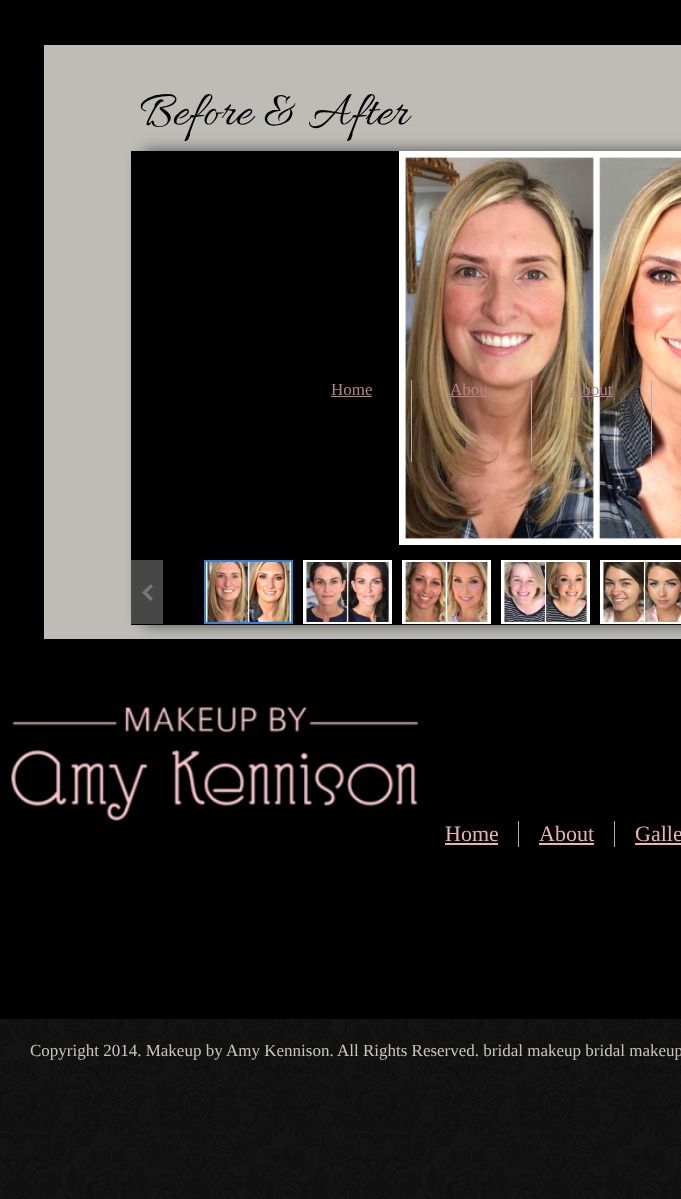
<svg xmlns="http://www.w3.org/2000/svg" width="681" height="1199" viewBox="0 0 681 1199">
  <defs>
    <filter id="blur1" x="-50%" y="-200%" width="200%" height="500%"><feGaussianBlur stdDeviation="7.5"/></filter>
  </defs>
  <rect width="100%" height="100%" fill="#ffffff"/>
  <rect x="0" y="0" width="681" height="1019" fill="#000000"/>
  <rect x="44" y="45" width="637" height="594" fill="#bdbcb6"/>
  <text x="140" y="124" font-family="Allura" font-size="50" fill="#000000">Before &amp; After</text>
  <rect x="141" y="151" width="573" height="474" rx="10" fill="#000000" fill-opacity="0.6" filter="url(#blur1)"/>
  <rect x="131" y="151" width="550" height="474" fill="#000000"/>
  <image x="399" y="151" width="282" height="394" href="img1.png"/>
  <rect x="131" y="560" width="32" height="64" fill="#474747"/>
  <image x="142" y="584" width="11" height="17" href="img2.png"/>
  <rect x="204" y="560" width="89" height="64" fill="#3182e6"/>
  <image x="206" y="562" width="85" height="60" href="img3.png"/>
  <rect x="304" y="561" width="87" height="62" fill="none" stroke="#ffffff" stroke-width="2"/>
  <image x="305" y="562" width="85" height="60" href="img4.png"/>
  <rect x="403" y="561" width="87" height="62" fill="none" stroke="#ffffff" stroke-width="2"/>
  <image x="404" y="562" width="85" height="60" href="img5.png"/>
  <rect x="502" y="561" width="87" height="62" fill="none" stroke="#ffffff" stroke-width="2"/>
  <image x="503" y="562" width="85" height="60" href="img6.png"/>
  <rect x="601" y="561" width="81" height="62" fill="none" stroke="#ffffff" stroke-width="2"/>
  <image x="602" y="562" width="79" height="60" href="img7.png"/>
  <rect x="411" y="380" width="1" height="82" fill="#aeaeae"/>
  <text x="331" y="395" font-family="Liberation Serif" font-size="17" fill="#b58389">Home</text>
  <rect x="331" y="396" width="41" height="1" fill="#b58389"/>
  <rect x="531" y="380" width="1" height="82" fill="#aeaeae"/>
  <text x="450" y="395" font-family="Liberation Serif" font-size="17" fill="#b58389">Abou</text>
  <rect x="450" y="396" width="43" height="1" fill="#b58389"/>
  <rect x="651" y="380" width="1" height="82" fill="#aeaeae"/>
  <text x="570" y="395" font-family="Liberation Serif" font-size="17" fill="#b58389">About</text>
  <rect x="570" y="396" width="43" height="1" fill="#b58389"/>
  <image x="11" y="707" width="407" height="114" href="img8.png"/>
  <rect x="518" y="821" width="1" height="26" fill="#aeaeae"/>
  <text x="445" y="841" font-family="Liberation Serif" font-size="22" fill="#ebb0c6">Home</text>
  <rect x="445" y="843" width="53" height="2" fill="#ebb0c6"/>
  <rect x="614" y="821" width="1" height="26" fill="#aeaeae"/>
  <text x="539" y="841" font-family="Liberation Serif" font-size="22" fill="#ebb0c6">About</text>
  <rect x="539" y="843" width="55" height="2" fill="#ebb0c6"/>
  <text x="635" y="841" font-family="Liberation Serif" font-size="22" fill="#ebb0c6">Galle</text>
  <rect x="635" y="843" width="46" height="2" fill="#ebb0c6"/>
  <image x="0" y="1019" width="681" height="180" href="img9.png"/>
  <text x="30" y="1056" font-family="Liberation Serif" font-size="17" fill="#cbc6bd">Copyright 2014. Makeup by Amy Kennison. All Rights Reserved. bridal makeup bridal makeup</text>
</svg>
